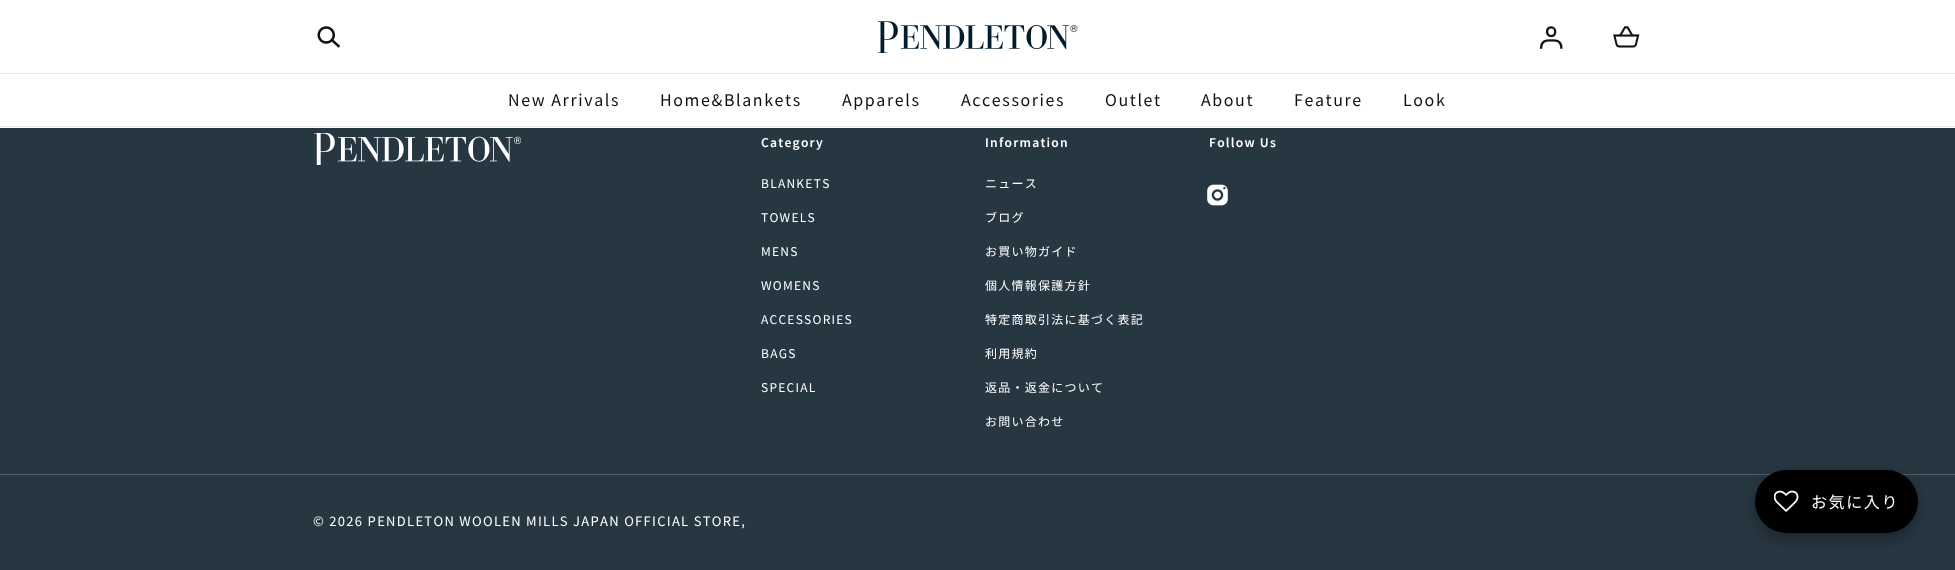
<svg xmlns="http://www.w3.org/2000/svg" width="1955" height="570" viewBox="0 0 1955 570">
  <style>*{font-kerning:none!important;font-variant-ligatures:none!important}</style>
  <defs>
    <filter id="blur1" x="-50%" y="-200%" width="200%" height="500%"><feGaussianBlur stdDeviation="9.5"/></filter>
  </defs>
  <rect width="100%" height="100%" fill="#273742"/>
  <rect x="0" y="0" width="1955" height="128" fill="#ffffff"/>
  <rect x="0" y="126" width="1955" height="1" fill="#e6e6e6"/>
  <rect x="0" y="73" width="1955" height="1" fill="#e6e6e6"/>
  <image x="317" y="26" width="24" height="22" href="img1.png"/>
  <image x="878" y="21" width="200" height="32" href="img2.png"/>
  <image x="1540" y="26" width="23" height="23" href="img3.png"/>
  <image x="1613" y="26" width="27" height="22" href="img4.png"/>
  <text x="508" y="106" font-family="Noto Sans JP" font-size="16" letter-spacing="1.6" fill="#111111">New Arrivals</text>
  <text x="660" y="106" font-family="Noto Sans JP" font-size="16" letter-spacing="1.6" fill="#111111">Home&amp;Blankets</text>
  <text x="842" y="106" font-family="Noto Sans JP" font-size="16" letter-spacing="1.6" fill="#111111">Apparels</text>
  <text x="961" y="106" font-family="Noto Sans JP" font-size="16" letter-spacing="1.6" fill="#111111">Accessories</text>
  <text x="1105" y="106" font-family="Noto Sans JP" font-size="16" letter-spacing="1.6" fill="#111111">Outlet</text>
  <text x="1201" y="106" font-family="Noto Sans JP" font-size="16" letter-spacing="1.6" fill="#111111">About</text>
  <text x="1294" y="106" font-family="Noto Sans JP" font-size="16" letter-spacing="1.6" fill="#111111">Feature</text>
  <text x="1403" y="106" font-family="Noto Sans JP" font-size="16" letter-spacing="1.6" fill="#111111">Look</text>
  <image x="314" y="133" width="207" height="32" href="img5.png"/>
  <text x="761" y="147" font-family="Noto Sans JP" font-size="12" font-weight="600" letter-spacing="1.25" fill="#ffffff">Category</text>
  <text x="761" y="188" font-family="Noto Sans JP" font-size="12" letter-spacing="1.25" fill="#ffffff">BLANKETS</text>
  <text x="761" y="222" font-family="Noto Sans JP" font-size="12" letter-spacing="1.25" fill="#ffffff">TOWELS</text>
  <text x="761" y="256" font-family="Noto Sans JP" font-size="12" letter-spacing="1.25" fill="#ffffff">MENS</text>
  <text x="761" y="290" font-family="Noto Sans JP" font-size="12" letter-spacing="1.25" fill="#ffffff">WOMENS</text>
  <text x="761" y="324" font-family="Noto Sans JP" font-size="12" letter-spacing="1.25" fill="#ffffff">ACCESSORIES</text>
  <text x="761" y="358" font-family="Noto Sans JP" font-size="12" letter-spacing="1.25" fill="#ffffff">BAGS</text>
  <text x="761" y="392" font-family="Noto Sans JP" font-size="12" letter-spacing="1.25" fill="#ffffff">SPECIAL</text>
  <text x="985" y="147" font-family="Noto Sans JP" font-size="12" font-weight="600" letter-spacing="1.25" fill="#ffffff">Information</text>
  <text x="985" y="188" font-family="Noto Sans JP" font-size="12" letter-spacing="1.25" fill="#ffffff">ニュース</text>
  <text x="985" y="222" font-family="Noto Sans JP" font-size="12" letter-spacing="1.25" fill="#ffffff">ブログ</text>
  <text x="985" y="256" font-family="Noto Sans JP" font-size="12" letter-spacing="1.25" fill="#ffffff">お買い物ガイド</text>
  <text x="985" y="290" font-family="Noto Sans JP" font-size="12" letter-spacing="1.25" fill="#ffffff">個人情報保護方針</text>
  <text x="985" y="324" font-family="Noto Sans JP" font-size="12" letter-spacing="1.25" fill="#ffffff">特定商取引法に基づく表記</text>
  <text x="985" y="358" font-family="Noto Sans JP" font-size="12" letter-spacing="1.25" fill="#ffffff">利用規約</text>
  <text x="985" y="392" font-family="Noto Sans JP" font-size="12" letter-spacing="1.25" fill="#ffffff">返品・返金について</text>
  <text x="985" y="426" font-family="Noto Sans JP" font-size="12" letter-spacing="1.25" fill="#ffffff">お問い合わせ</text>
  <text x="1209" y="147" font-family="Noto Sans JP" font-size="12" font-weight="600" letter-spacing="1.25" fill="#ffffff">Follow Us</text>
  <image x="1207" y="184" width="21" height="22" href="img6.png"/>
  <rect x="0" y="474" width="1955" height="1" fill="#525f68"/>
  <text x="313" y="526" font-family="Noto Sans JP" font-size="13" letter-spacing="1.3" fill="#ffffff">© 2026 PENDLETON WOOLEN MILLS JAPAN OFFICIAL STORE,</text>
  <rect x="1755" y="476" width="163" height="63" rx="31.5" fill="#000000" fill-opacity="0.35" filter="url(#blur1)"/>
  <rect x="1755" y="470" width="163" height="63" rx="31.5" fill="#000000"/>
  <image x="1774" y="490" width="25" height="22" href="img7.png"/>
  <text x="1811" y="508" font-family="Noto Sans JP" font-size="16" letter-spacing="1.6" fill="#ffffff">お気に入り</text>
</svg>
